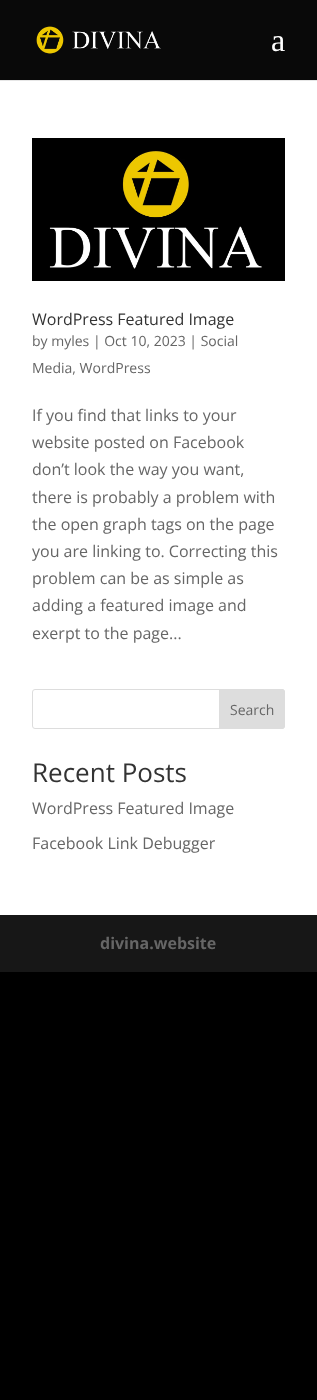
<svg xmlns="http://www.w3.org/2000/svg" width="317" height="1400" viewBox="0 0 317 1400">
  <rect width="100%" height="100%" fill="#000000"/>
  <rect x="0" y="80" width="317" height="1" fill="#e6e6e6"/>
  <rect x="0" y="0" width="317" height="80" fill="#090909"/>
  <image x="36" y="26" width="125" height="28" href="img1.png"/>
  <text x="271" y="51" font-family="Liberation Serif" font-size="32" fill="#ffffff">a</text>
  <rect x="0" y="81" width="317" height="834" fill="#ffffff"/>
  <image x="32" y="138" width="253" height="143" href="img2.png"/>
  <text x="32" y="325" font-family="Open Sans" font-size="16" fill="#333333">WordPress Featured Image</text>
  <text x="32" y="346" font-family="Open Sans" font-size="14" fill="#666666">by myles | Oct 10, 2023 | Social</text>
  <text x="32" y="373" font-family="Open Sans" font-size="14" fill="#666666">Media, WordPress</text>
  <text x="32" y="421" font-family="Open Sans" font-size="16" fill="#666666">If you find that links to your</text>
  <text x="32" y="448" font-family="Open Sans" font-size="16" fill="#666666">website posted on Facebook</text>
  <text x="32" y="475" font-family="Open Sans" font-size="16" fill="#666666">don’t look the way you want,</text>
  <text x="32" y="503" font-family="Open Sans" font-size="16" fill="#666666">there is probably a problem with</text>
  <text x="32" y="530" font-family="Open Sans" font-size="16" fill="#666666">the open graph tags on the page</text>
  <text x="32" y="557" font-family="Open Sans" font-size="16" fill="#666666">you are linking to. Correcting this</text>
  <text x="32" y="584" font-family="Open Sans" font-size="16" fill="#666666">problem can be as simple as</text>
  <text x="32" y="611" font-family="Open Sans" font-size="16" fill="#666666">adding a featured image and</text>
  <text x="32" y="639" font-family="Open Sans" font-size="16" fill="#666666">exerpt to the page...</text>
  <rect x="32.5" y="689.5" width="252" height="39" rx="2.5" fill="none" stroke="#dddddd"/>
  <path d="M219.5 689.5H282C283.5 689.5 284.5 690.5 284.5 692V726C284.5 727.5 283.5 728.5 282 728.5H219.5Z" fill="#dddddd" stroke="#dddddd"/>
  <text x="230" y="715" font-family="Open Sans" font-size="14" fill="#666666">Search</text>
  <text x="32" y="782" font-family="Open Sans" font-size="26" fill="#333333">Recent Posts</text>
  <text x="32" y="814" font-family="Open Sans" font-size="16" fill="#666666">WordPress Featured Image</text>
  <text x="32" y="849" font-family="Open Sans" font-size="16" fill="#666666">Facebook Link Debugger</text>
  <rect x="0" y="915" width="317" height="57" fill="#171717"/>
  <text x="100" y="949" font-family="Open Sans" font-size="16" font-weight="bold" fill="#666666">divina.website</text>
</svg>
